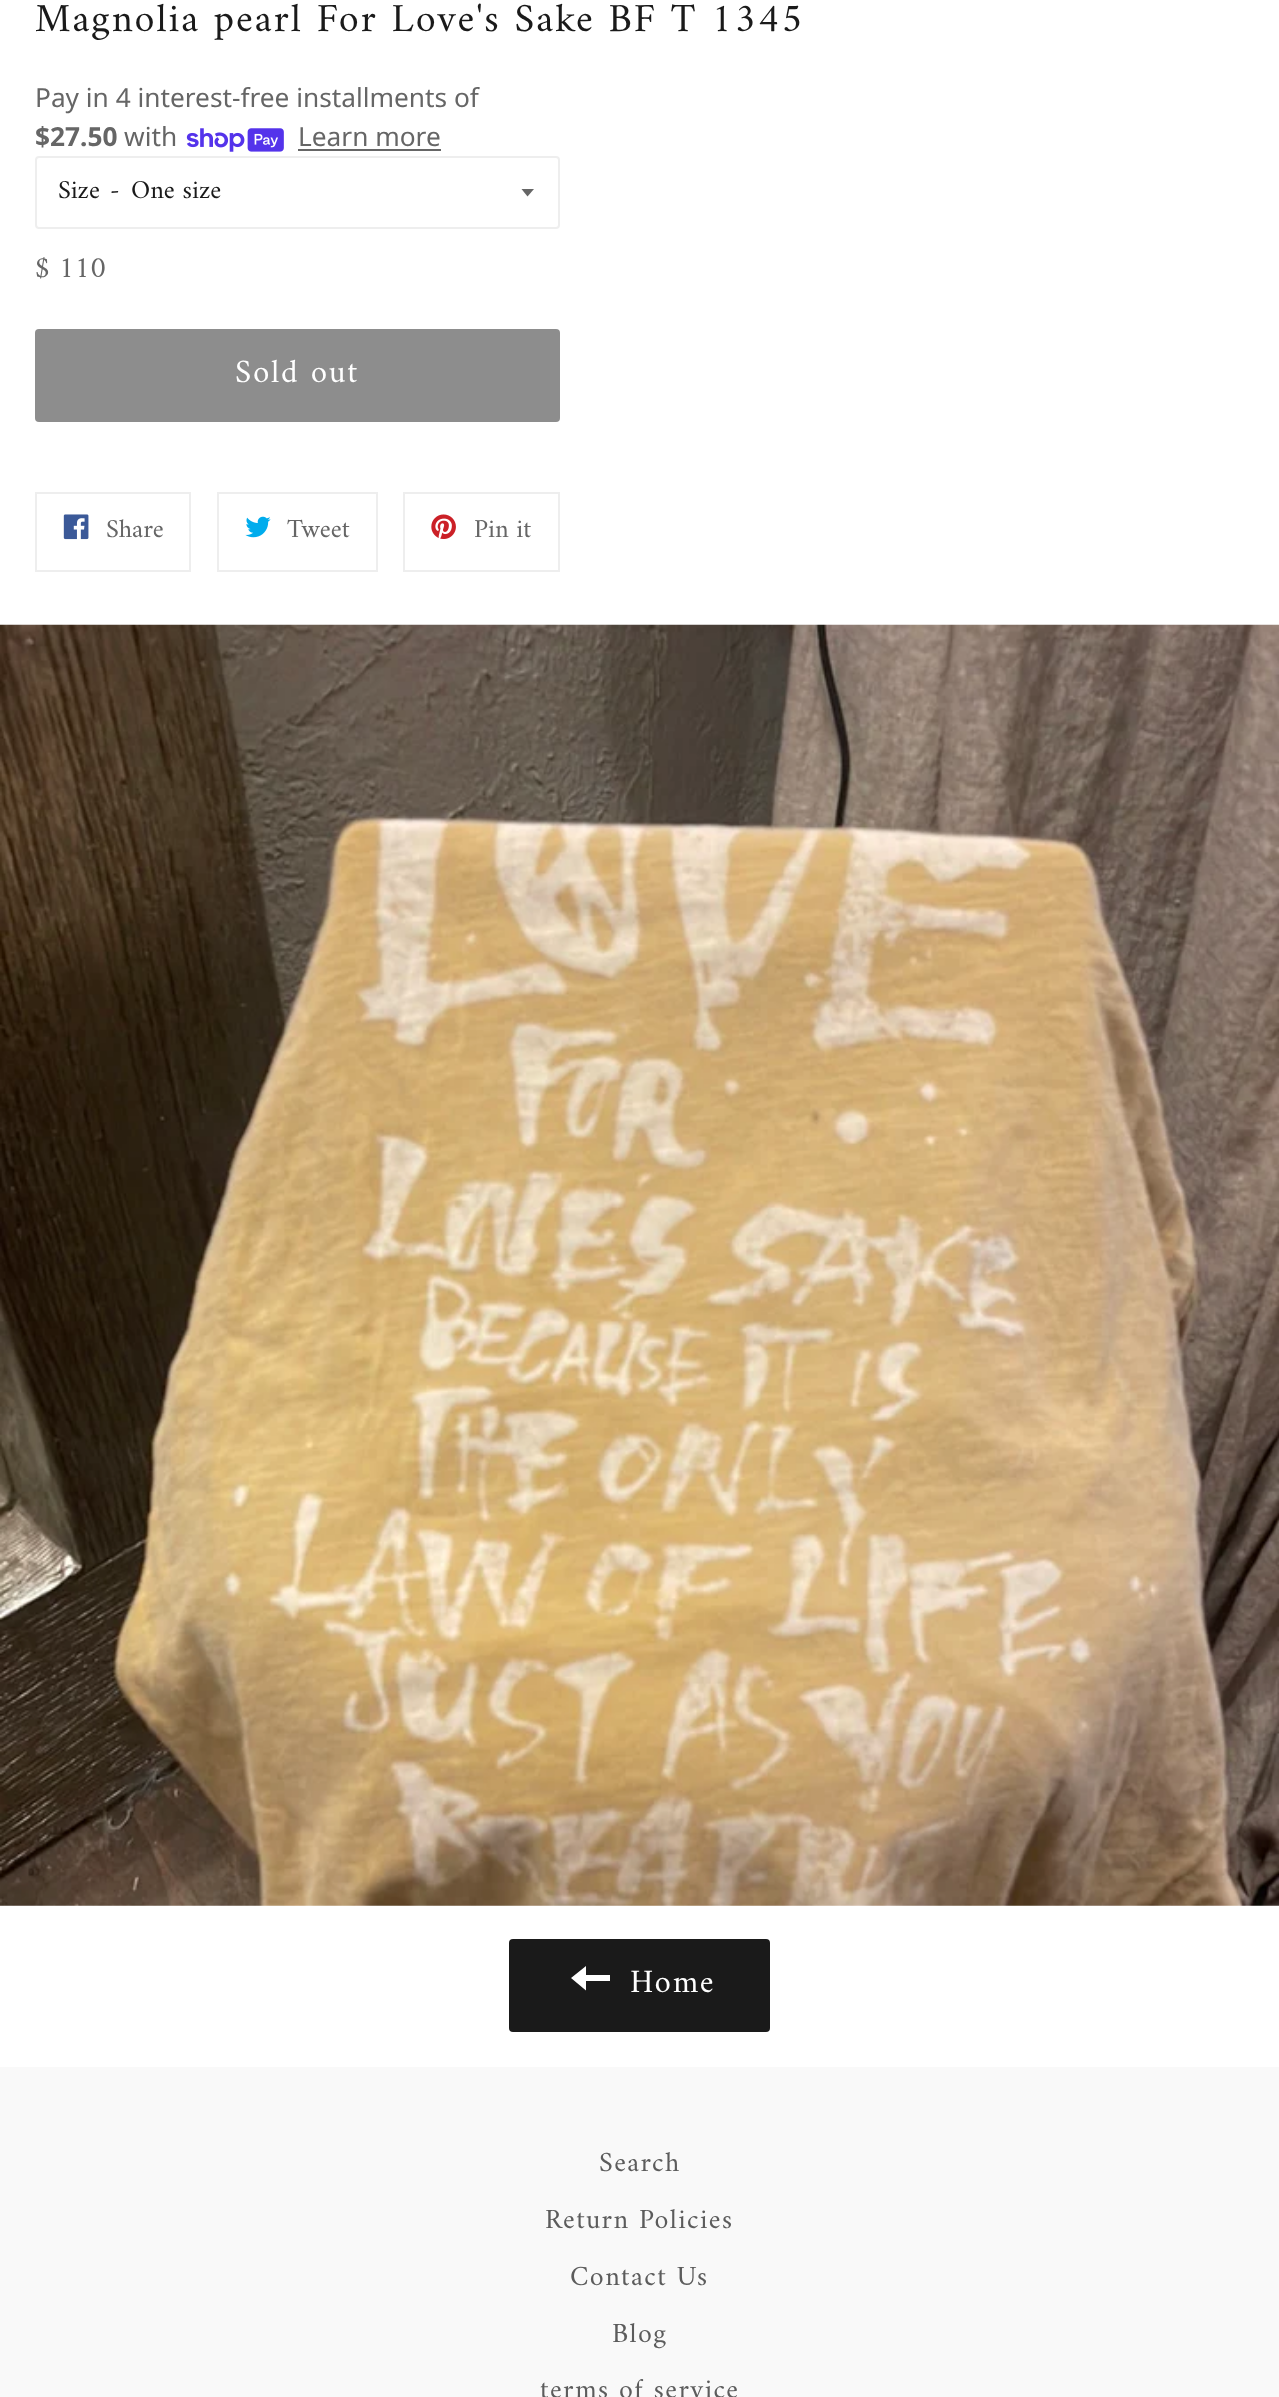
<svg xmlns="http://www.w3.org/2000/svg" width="1279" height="2397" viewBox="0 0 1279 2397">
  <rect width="100%" height="100%" fill="#ffffff"/>
  <text x="35" y="31" font-family="Amiri" font-size="40.25" letter-spacing="2" fill="#1a1a1a">Magnolia pearl For Love's Sake BF T 1345</text>
  <text x="35" y="107" font-family="Noto Sans" font-size="26.25" fill="#666666">Pay in 4 interest-free installments of</text>
  <text x="35" y="146" font-family="Noto Sans" font-size="26.25" font-weight="bold" fill="#666666">$27.50</text>
  <text x="124" y="146" font-family="Noto Sans" font-size="26.25" fill="#666666">with</text>
  <image x="186" y="128" width="98" height="24" href="img1.png"/>
  <text x="298" y="146" font-family="Noto Sans" font-size="26.25" fill="#666666">Learn more</text>
  <rect x="298" y="149" width="143" height="2" fill="#666666"/>
  <rect x="36" y="157" width="523" height="71" rx="3" fill="none" stroke="#eeeeee" stroke-width="2"/>
  <text x="58" y="198" font-family="Amiri" font-size="26.25" fill="#1a1a1a">Size</text>
  <text x="110" y="198" font-family="Amiri" font-size="26.25" fill="#1a1a1a">-</text>
  <path d="M521.5 189L527.5 196.5L534 189Z" fill="#666666"/>
  <text x="131" y="198" font-family="Amiri" font-size="26.25" fill="#1a1a1a">One size</text>
  <text x="35" y="277" font-family="Amiri" font-size="30" fill="#666666">$ 110</text>
  <rect x="35" y="329" width="525" height="93" rx="4" fill="#8d8d8d"/>
  <text x="235" y="382" font-family="Amiri" font-size="33" letter-spacing="1.75" fill="#ffffff">Sold out</text>
  <rect x="36" y="493" width="154" height="78" fill="none" stroke="#eeeeee" stroke-width="2"/>
  <image x="63" y="514" width="26" height="26" href="img2.png"/>
  <text x="106" y="537" font-family="Amiri" font-size="26.25" fill="#666666">Share</text>
  <rect x="218" y="493" width="159" height="78" fill="none" stroke="#eeeeee" stroke-width="2"/>
  <image x="245" y="516" width="26" height="22" href="img3.png"/>
  <text x="287" y="537" font-family="Amiri" font-size="26.25" fill="#666666">Tweet</text>
  <rect x="404" y="493" width="155" height="78" fill="none" stroke="#eeeeee" stroke-width="2"/>
  <image x="431" y="514" width="25" height="25" href="img4.png"/>
  <text x="474" y="537" font-family="Amiri" font-size="26.25" fill="#666666">Pin it</text>
  <image x="0" y="624" width="1279" height="1282" href="img5.png"/>
  <rect x="509" y="1939" width="261" height="93" rx="4" fill="#1a1a1a"/>
  <path d="M586 1975V1966L571 1978L586 1990.5V1981H610V1975Z" fill="#ffffff"/>
  <text x="630" y="1992" font-family="Amiri" font-size="33" letter-spacing="1.75" fill="#ffffff">Home</text>
  <rect x="0" y="2067" width="1279" height="330" fill="#f9f9f9"/>
  <text x="599" y="2171" font-family="Amiri" font-size="28" letter-spacing="1.4" fill="#5c5c5c">Search</text>
  <text x="545" y="2228" font-family="Amiri" font-size="28" letter-spacing="1.4" fill="#5c5c5c">Return Policies</text>
  <text x="570" y="2285" font-family="Amiri" font-size="28" letter-spacing="1.4" fill="#5c5c5c">Contact Us</text>
  <text x="612" y="2342" font-family="Amiri" font-size="28" letter-spacing="1.4" fill="#5c5c5c">Blog</text>
  <text x="540" y="2398" font-family="Amiri" font-size="28" letter-spacing="1.4" fill="#5c5c5c">terms of service</text>
</svg>
